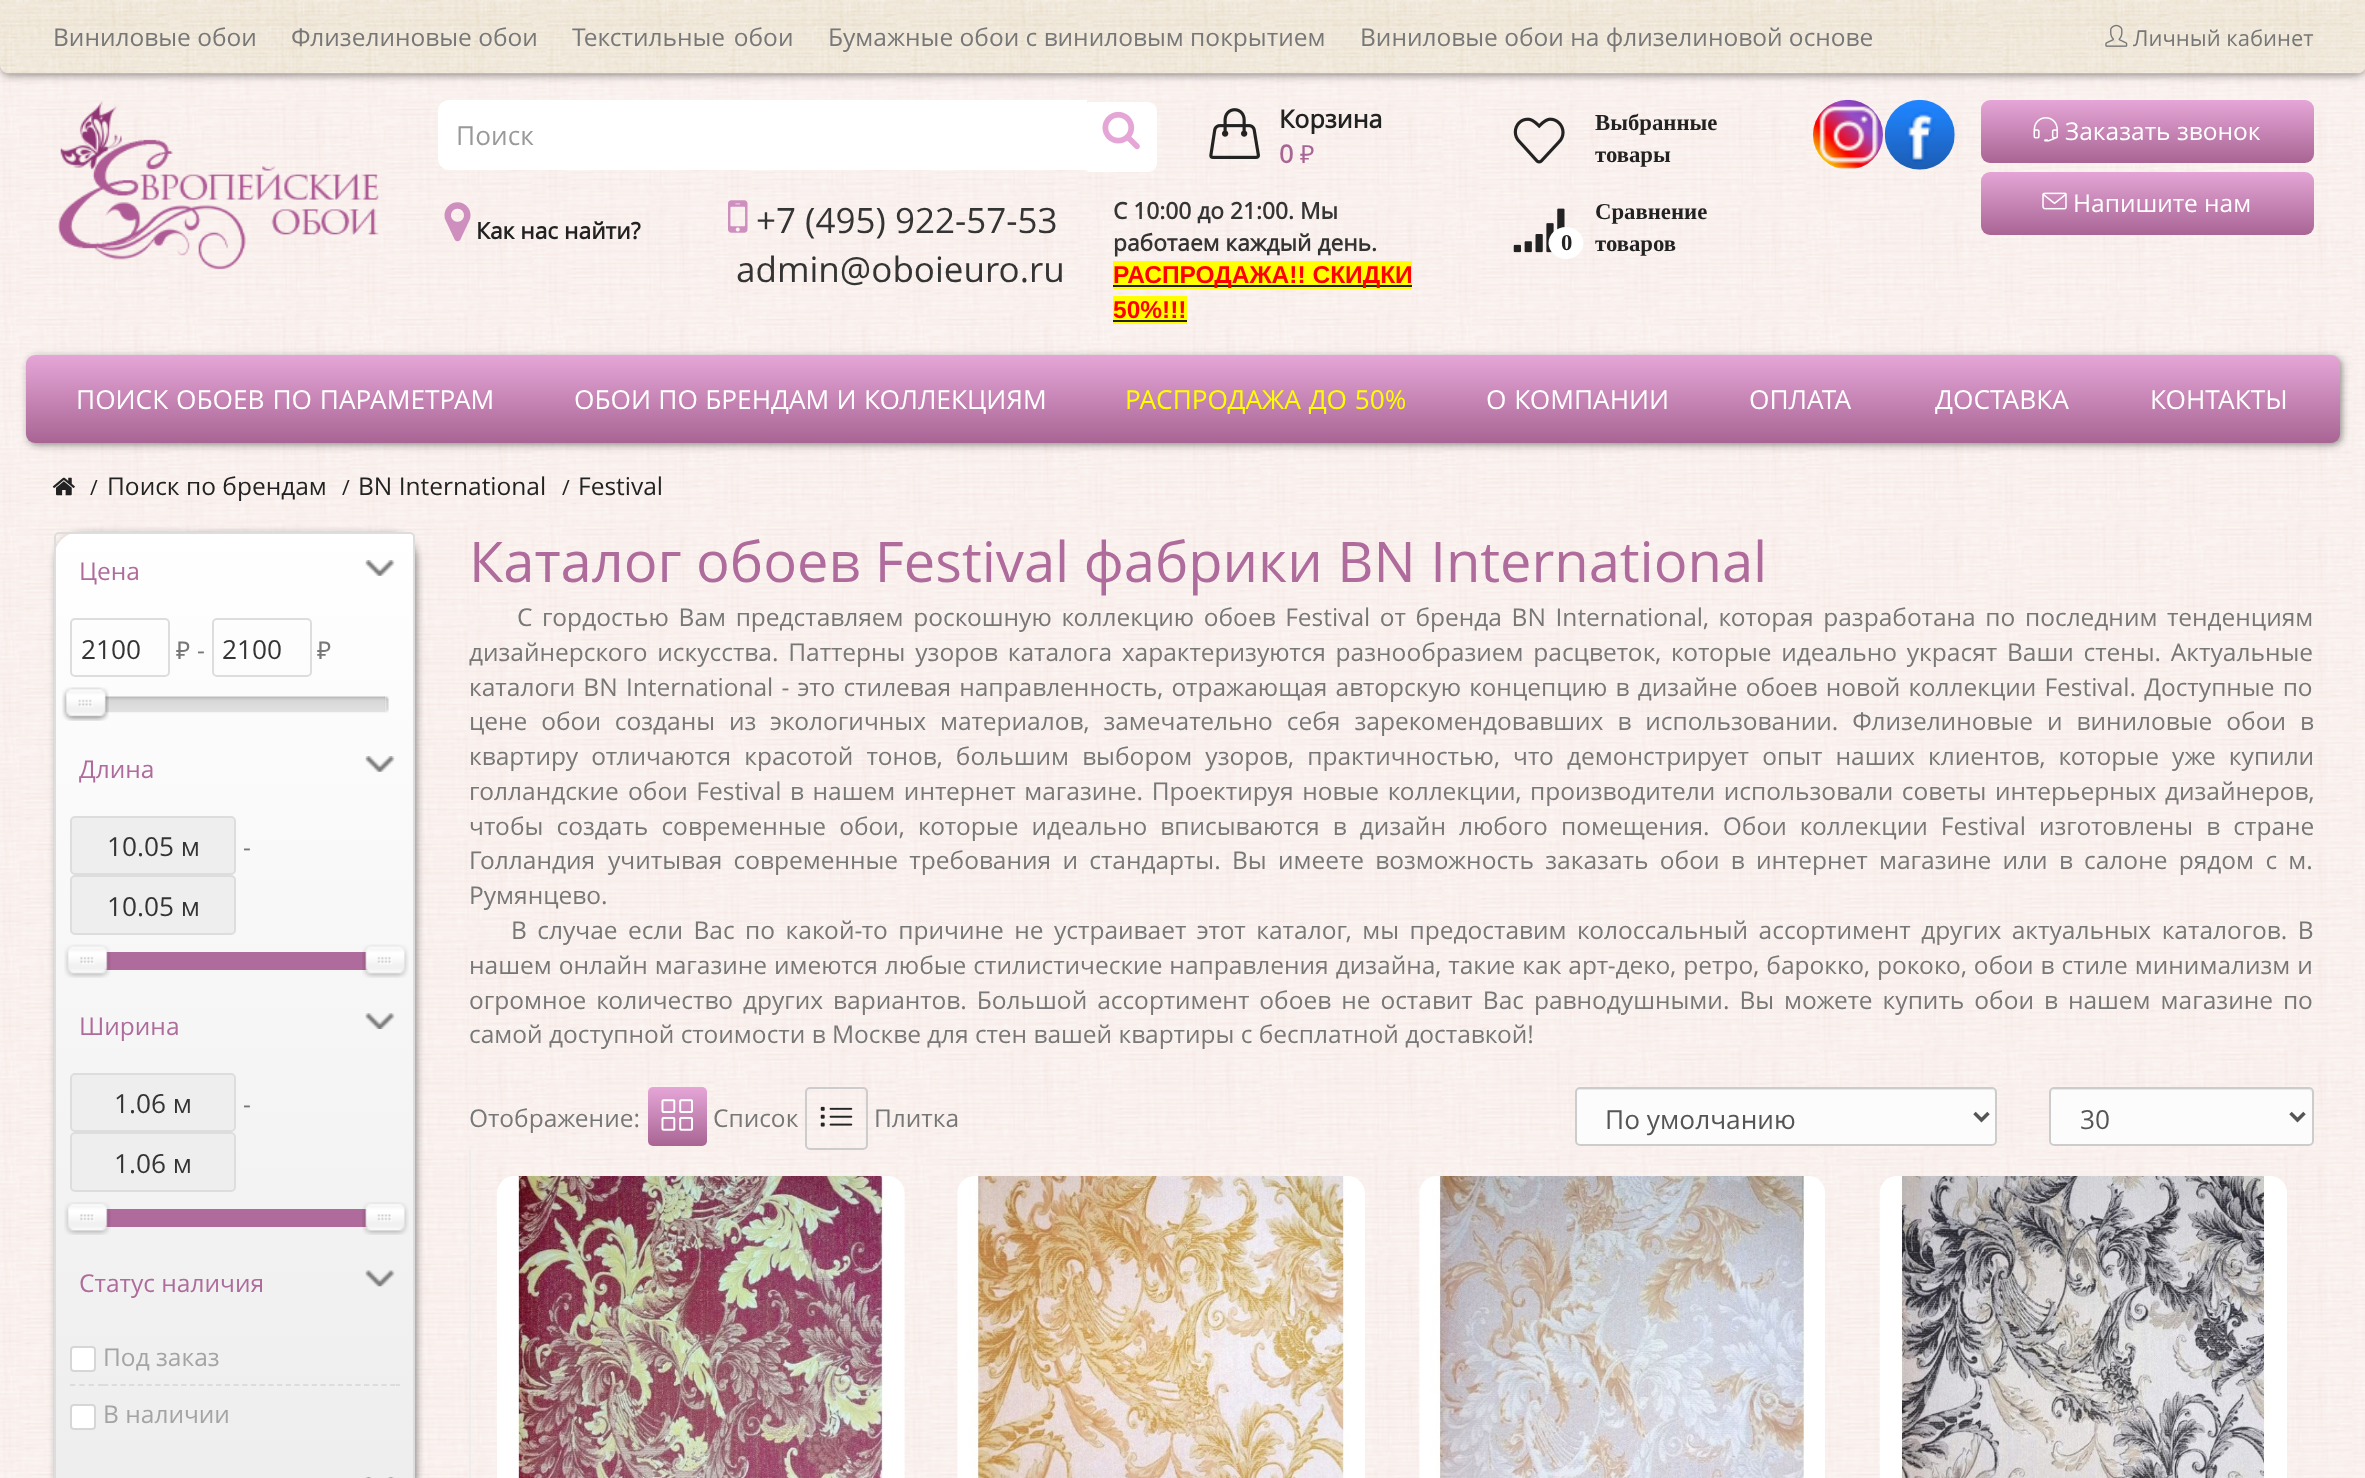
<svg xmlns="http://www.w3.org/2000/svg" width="2365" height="1478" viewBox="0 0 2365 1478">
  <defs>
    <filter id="blur1" x="-50%" y="-200%" width="200%" height="500%"><feGaussianBlur stdDeviation="4.5"/></filter>
    <linearGradient id="g1" gradientUnits="userSpaceOnUse" x1="2147" y1="100" x2="2147" y2="163"><stop offset="0" stop-color="#e5a6d7"/><stop offset="1" stop-color="#a86594"/></linearGradient>
    <linearGradient id="g2" gradientUnits="userSpaceOnUse" x1="2147" y1="171" x2="2147" y2="235"><stop offset="0" stop-color="#e5a6d7"/><stop offset="1" stop-color="#a86594"/></linearGradient>
    <filter id="blur2" x="-50%" y="-200%" width="200%" height="500%"><feGaussianBlur stdDeviation="3.5"/></filter>
    <linearGradient id="g3" gradientUnits="userSpaceOnUse" x1="1183" y1="355" x2="1183" y2="443"><stop offset="0" stop-color="#e5a6d7"/><stop offset="1" stop-color="#a86594"/></linearGradient>
    <linearGradient id="g4" gradientUnits="userSpaceOnUse" x1="234" y1="532" x2="235" y2="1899"><stop offset="0" stop-color="#ffffff"/><stop offset="1" stop-color="#e6e6e6"/></linearGradient>
    <linearGradient id="g5" gradientUnits="userSpaceOnUse" x1="677" y1="1087" x2="677" y2="1146"><stop offset="0" stop-color="#e5a6d7"/><stop offset="1" stop-color="#a86594"/></linearGradient>
  </defs>
  <rect width="100%" height="100%" fill="#ffffff"/>
  <image x="0" y="65" width="2365" height="1413" href="img1.png"/>
  <rect x="2" y="5" width="2362" height="70" rx="7" fill="#000000" fill-opacity="0.46" filter="url(#blur1)"/>
  <image x="0" y="0" width="2365" height="74" href="img2.png"/>
  <text x="53" y="46" font-family="Open Sans" font-size="24.5" fill="#777777">Виниловые обои</text>
  <text x="291" y="46" font-family="Open Sans" font-size="24.5" fill="#777777">Флизелиновые обои</text>
  <text x="572" y="46" word-spacing="2.25" font-family="Open Sans" font-size="24.5" fill="#777777">Текстильные обои</text>
  <text x="828" y="46" font-family="Open Sans" font-size="24.5" fill="#777777">Бумажные обои с виниловым покрытием</text>
  <text x="1360" y="46" font-family="Open Sans" font-size="24.5" fill="#777777">Виниловые обои на флизелиновой основе</text>
  <image x="2105" y="24" width="23" height="23" href="img3.png"/>
  <text x="2133" y="46" font-family="Open Sans" font-size="22" fill="#777777">Личный кабинет</text>
  <image x="58" y="101" width="321" height="169" href="img4.png"/>
  <path d="M449 100H1087V170H449C443 170 438 165 438 159V111C438 105 443 100 449 100Z" fill="#ffffff"/>
  <text x="456" y="145" font-family="Open Sans" font-size="26.25" fill="#999999">Поиск</text>
  <path d="M1089 102H1148C1153 102 1157 106 1157 111V163C1157 168 1153 172 1148 172H1089C1088 172 1087 171 1087 170V104C1087 103 1088 102 1089 102Z" fill="#ffffff"/>
  <image x="1102" y="111" width="38" height="39" href="img5.png"/>
  <image x="1209" y="108" width="51" height="51" href="img6.png"/>
  <text x="1279" y="128" font-family="Open Sans" font-size="25" font-weight="bold" fill="#222222">Корзина</text>
  <text x="1279" y="163" font-family="Open Sans" font-size="25" font-weight="bold" fill="#a86594">0</text>
  <text x="1300" y="163" font-family="Noto Sans" font-size="25" fill="#a86594">₽</text>
  <image x="444" y="202" width="27" height="40" href="img7.png"/>
  <text x="476" y="239" font-family="Open Sans" font-size="22.75" font-weight="bold" fill="#222222">Как нас найти?</text>
  <image x="728" y="200" width="20" height="33" href="img8.png"/>
  <text x="756" y="233" font-family="Open Sans" font-size="35" fill="#343434">+7 (495) 922-57-53</text>
  <text x="736" y="282" font-family="Open Sans" font-size="35" fill="#343434">admin@oboieuro.ru</text>
  <text x="1113" y="219" font-family="Open Sans" font-size="22.75" font-weight="bold" fill="#343434">C 10:00 до 21:00. Мы</text>
  <text x="1113" y="251" font-family="Open Sans" font-size="22.75" font-weight="bold" fill="#343434">работаем каждый день.</text>
  <rect x="1113" y="261" width="299" height="28" fill="#ffff00"/>
  <rect x="1113" y="285" width="299" height="2" fill="#222222"/>
  <text x="1113" y="283" font-family="Liberation Sans" font-size="24.5" font-weight="bold" fill="#ff0000">РАСПРОДАЖА!! СКИДКИ</text>
  <rect x="1113" y="296" width="74" height="28" fill="#ffff00"/>
  <text x="1113" y="318" font-family="Liberation Sans" font-size="24.5" font-weight="bold" fill="#ff0000">50%!!!</text>
  <rect x="1113" y="320" width="74" height="2" fill="#222222"/>
  <image x="1513" y="117" width="52" height="47" href="img9.png"/>
  <text x="1595" y="130" font-family="Liberation Serif" font-size="22.75" font-weight="bold" fill="#222222">Выбранные</text>
  <text x="1595" y="162" font-family="Liberation Serif" font-size="22.75" font-weight="bold" fill="#222222">товары</text>
  <image x="1513" y="208" width="52" height="45" href="img10.png"/>
  <ellipse cx="1566" cy="243" rx="17.5" ry="16" fill="#ffffff"/>
  <text x="1561" y="250" font-family="Liberation Serif" font-size="22.75" font-weight="bold" fill="#222222">0</text>
  <text x="1595" y="219" font-family="Liberation Serif" font-size="22.75" font-weight="bold" fill="#222222">Сравнение</text>
  <text x="1595" y="251" font-family="Liberation Serif" font-size="22.75" font-weight="bold" fill="#222222">товаров</text>
  <image x="1813" y="99" width="70" height="70" href="img11.png"/>
  <image x="1884" y="99" width="71" height="71" href="img12.png"/>
  <rect x="1981" y="100" width="333" height="63" rx="9" fill="url(#g1)"/>
  <image x="2033" y="117" width="25" height="25" href="img13.png"/>
  <text x="2065" y="140" font-family="Open Sans" font-size="24.5" fill="#ffffff">Заказать звонок</text>
  <rect x="1981" y="172" width="333" height="63" rx="9" fill="url(#g2)"/>
  <image x="2042" y="192" width="25" height="18" href="img14.png"/>
  <text x="2073" y="212" font-family="Open Sans" font-size="24.5" fill="#ffffff">Напишите нам</text>
  <rect x="28" y="357" width="2314" height="88" rx="9" fill="#323232" fill-opacity="0.52" filter="url(#blur2)"/>
  <rect x="26" y="355" width="2314" height="88" rx="9" fill="url(#g3)"/>
  <text x="76" y="409" word-spacing="1" font-family="Open Sans" font-size="26.25" fill="#ffffff">ПОИСК ОБОЕВ ПО ПАРАМЕТРАМ</text>
  <text x="574" y="409" word-spacing="0.5" font-family="Open Sans" font-size="26.25" fill="#ffffff">ОБОИ ПО БРЕНДАМ И КОЛЛЕКЦИЯМ</text>
  <text x="1125" y="409" word-spacing="1" font-family="Open Sans" font-size="26.25" fill="#ffff00">РАСПРОДАЖА ДО 50%</text>
  <text x="1486" y="409" word-spacing="1" font-family="Open Sans" font-size="26.25" fill="#ffffff">О КОМПАНИИ</text>
  <text x="1749" y="409" font-family="Open Sans" font-size="26.25" fill="#ffffff">ОПЛАТА</text>
  <text x="1935" y="409" font-family="Open Sans" font-size="26.25" fill="#ffffff">ДОСТАВКА</text>
  <text x="2150" y="409" font-family="Open Sans" font-size="26.25" fill="#ffffff">КОНТАКТЫ</text>
  <image x="52" y="477" width="23" height="19" href="img15.png"/>
  <text x="90" y="495" font-family="Open Sans" font-size="21" fill="#222222">/</text>
  <text x="107" y="495" font-family="Open Sans" font-size="24.5" fill="#222222">Поиск по брендам</text>
  <text x="342" y="495" font-family="Open Sans" font-size="21" fill="#222222">/</text>
  <text x="358" y="495" font-family="Open Sans" font-size="24.5" fill="#222222">BN International</text>
  <text x="562" y="495" font-family="Open Sans" font-size="21" fill="#222222">/</text>
  <text x="578" y="495" font-family="Open Sans" font-size="24.5" fill="#222222">Festival</text>
  <rect x="56" y="534" width="361" height="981" rx="26" fill="#323232" fill-opacity="0.52" filter="url(#blur2)"/>
  <path d="M80 532H406C411 532 415 536 415 541V1478C415 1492.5 403.5 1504 389 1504H63C58 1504 54 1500 54 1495V558C54 543.5 65.5 532 80 532Z" fill="url(#g4)"/>
  <rect x="55" y="533" width="359" height="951" rx="4" fill="none" stroke="#dddddd" stroke-width="2"/>
  <text x="79" y="580" font-family="Open Sans" font-size="24.5" fill="#ae6b9b">Цена</text>
  <image x="365" y="560" width="30" height="16" href="img16.png"/>
  <rect x="71" y="619" width="98" height="57" rx="4" fill="none" stroke="#dddddd" stroke-width="2"/>
  <text x="81" y="659" font-family="Open Sans" font-size="26.25" fill="#343434">2100</text>
  <text x="176" y="659" font-family="Noto Sans" font-size="24.5" fill="#777777">₽</text>
  <text x="197" y="659" font-family="Open Sans" font-size="24.5" fill="#777777">-</text>
  <rect x="213" y="619" width="98" height="57" rx="4" fill="none" stroke="#dddddd" stroke-width="2"/>
  <text x="222" y="659" font-family="Open Sans" font-size="26.25" fill="#343434">2100</text>
  <text x="317" y="659" font-family="Noto Sans" font-size="24.5" fill="#777777">₽</text>
  <image x="384" y="696" width="5" height="17" href="img17.png"/>
  <image x="102" y="696" width="283" height="17" href="img18.png"/>
  <image x="62" y="687" width="47" height="34" href="img19.png"/>
  <image x="62" y="687" width="47" height="34" href="img20.png"/>
  <text x="79" y="778" font-family="Open Sans" font-size="24.5" fill="#ae6b9b">Длина</text>
  <image x="365" y="756" width="30" height="16" href="img21.png"/>
  <rect x="71" y="817" width="164" height="57" rx="4" fill="#eeeeee" stroke="#dddddd" stroke-width="2"/>
  <text x="107" y="856" font-family="Open Sans" font-size="26.25" fill="#343434">10.05 м</text>
  <text x="243" y="856" font-family="Open Sans" font-size="24.5" fill="#777777">-</text>
  <rect x="71" y="876" width="164" height="58" rx="4" fill="#eeeeee" stroke="#dddddd" stroke-width="2"/>
  <text x="107" y="916" font-family="Open Sans" font-size="26.25" fill="#343434">10.05 м</text>
  <rect x="104" y="952" width="264" height="18" fill="#ae6b9b"/>
  <image x="64" y="944" width="47" height="34" href="img22.png"/>
  <image x="362" y="944" width="47" height="34" href="img23.png"/>
  <text x="79" y="1035" font-family="Open Sans" font-size="24.5" fill="#ae6b9b">Ширина</text>
  <image x="365" y="1013" width="30" height="16" href="img24.png"/>
  <rect x="71" y="1074" width="164" height="57" rx="4" fill="#eeeeee" stroke="#dddddd" stroke-width="2"/>
  <text x="114" y="1113" font-family="Open Sans" font-size="26.25" fill="#343434">1.06 м</text>
  <text x="243" y="1113" font-family="Open Sans" font-size="24.5" fill="#777777">-</text>
  <rect x="71" y="1133" width="164" height="58" rx="4" fill="#eeeeee" stroke="#dddddd" stroke-width="2"/>
  <text x="114" y="1173" font-family="Open Sans" font-size="26.25" fill="#343434">1.06 м</text>
  <rect x="104" y="1209" width="264" height="18" fill="#ae6b9b"/>
  <image x="64" y="1202" width="47" height="33" href="img25.png"/>
  <image x="362" y="1202" width="47" height="33" href="img26.png"/>
  <text x="79" y="1292" font-family="Open Sans" font-size="24.5" fill="#ae6b9b">Статус наличия</text>
  <image x="365" y="1270" width="30" height="17" href="img27.png"/>
  <rect x="70" y="1346" width="26" height="26" rx="4" fill="#ffffff"/>
  <rect x="71" y="1347" width="24" height="24" rx="3" fill="none" stroke="#767676" stroke-opacity="0.3" stroke-width="2"/>
  <text x="103" y="1366" font-family="Open Sans" font-size="24.5" fill="#a4a4a4">Под заказ</text>
  <path d="M70 1385H103" fill="none" stroke="#dcdcdc" stroke-width="1.8" stroke-dasharray="5.25 4.08"/>
  <rect x="70" y="1404" width="26" height="26" rx="4" fill="#ffffff"/>
  <rect x="71" y="1405" width="24" height="24" rx="3" fill="none" stroke="#767676" stroke-opacity="0.3" stroke-width="2"/>
  <rect x="396" y="1384" width="4" height="2" fill="#dcdcdc"/>
  <path d="M103 1385H395.5" fill="none" stroke="#dcdcdc" stroke-width="1.8" stroke-dasharray="5.25 3.45"/>
  <text x="103" y="1423" font-family="Open Sans" font-size="24.5" fill="#a4a4a4">В наличии</text>
  <image x="365" y="1477" width="29" height="1" href="img28.png"/>
  <text x="469" y="582" font-family="Open Sans" font-size="56" fill="#ae6b9b">Каталог обоев Festival фабрики BN International</text>
  <text x="517" y="626" word-spacing="3.25" font-family="Open Sans" font-size="24.5" fill="#777777">С гордостью Вам представляем роскошную коллекцию обоев Festival от бренда BN International, которая разработана по последним тенденциям</text>
  <text x="469" y="661" word-spacing="3.4" font-family="Open Sans" font-size="24.5" fill="#777777">дизайнерского искусства. Паттерны узоров каталога характеризуются разнообразием расцветок, которые идеально украсят Ваши стены. Актуальные</text>
  <text x="469" y="696" word-spacing="1.8" font-family="Open Sans" font-size="24.5" fill="#777777">каталоги BN International - это стилевая направленность, отражающая авторскую концепцию в дизайне обоев новой коллекции Festival. Доступные по</text>
  <text x="469" y="730" word-spacing="7.5" font-family="Open Sans" font-size="24.5" fill="#777777">цене обои созданы из</text>
  <text x="770" y="730" word-spacing="7.6" font-family="Open Sans" font-size="24.5" fill="#777777">экологичных материалов, замечательно себя зарекомендовавших в использовании. Флизелиновые и виниловые обои в</text>
  <text x="469" y="765" word-spacing="6.75" font-family="Open Sans" font-size="24.5" fill="#777777">квартиру отличаются красотой тонов, большим выбором узоров, практичностью, что демонстрирует опыт наших клиентов, которые уже купили</text>
  <text x="469" y="800" font-family="Open Sans" font-size="24.5" fill="#777777">голландские</text>
  <text x="628" y="800" word-spacing="2.25" font-family="Open Sans" font-size="24.5" fill="#777777">обои Festival в нашем интернет магазине. Проектируя новые коллекции, производители использовали советы интерьерных дизайнеров,</text>
  <text x="469" y="835" word-spacing="6.75" font-family="Open Sans" font-size="24.5" fill="#777777">чтобы создать современные обои, которые идеально вписываются в дизайн любого помещения. Обои коллекции Festival изготовлены в стране</text>
  <text x="469" y="869" font-family="Open Sans" font-size="24.5" fill="#777777">Голландия</text>
  <text x="608" y="869" word-spacing="4.9" font-family="Open Sans" font-size="24.5" fill="#777777">учитывая современные требования и стандарты. Вы имеете возможность заказать обои в интернет магазине или в салоне рядом с м.</text>
  <text x="469" y="904" font-family="Open Sans" font-size="24.5" fill="#777777">Румянцево.</text>
  <text x="511" y="939" word-spacing="4.1" font-family="Open Sans" font-size="24.5" fill="#777777">В случае если Вас по какой-то причине не устраивает этот каталог, мы предоставим колоссальный ассортимент других актуальных каталогов. В</text>
  <text x="469" y="974" word-spacing="0.6" font-family="Open Sans" font-size="24.5" fill="#777777">нашем онлайн магазине имеются любые стилистические направления дизайна, такие как арт-деко, ретро, барокко, рококо, обои в стиле минимализм и</text>
  <text x="469" y="1009" word-spacing="3.6" font-family="Open Sans" font-size="24.5" fill="#777777">огромное количество других вариантов. Большой ассортимент обоев не оставит Вас равнодушными. Вы можете купить обои в нашем магазине по</text>
  <text x="469" y="1043" font-family="Open Sans" font-size="24.5" fill="#777777">самой доступной стоимости в Москве</text>
  <text x="927" y="1043" font-family="Open Sans" font-size="24.5" fill="#777777">для стен вашей квартиры с бесплатной доставкой!</text>
  <text x="469" y="1127" font-family="Open Sans" font-size="24.5" fill="#777777">Отображение:</text>
  <rect x="648" y="1087" width="59" height="59" rx="5" fill="url(#g5)"/>
  <image x="661" y="1099" width="32" height="32" href="img29.png"/>
  <text x="713" y="1127" font-family="Open Sans" font-size="24.5" fill="#777777">Список</text>
  <rect x="806" y="1088" width="61" height="61" rx="4" fill="none" stroke="#cccccc" stroke-width="2"/>
  <image x="820" y="1106" width="33" height="21" href="img30.png"/>
  <text x="874" y="1127" font-family="Open Sans" font-size="24.5" fill="#777777">Плитка</text>
  <rect x="1575" y="1087" width="422" height="59" rx="5" fill="#fcfcfc"/>
  <path d="M1580 1090H1992C1993 1090 1995 1092 1995 1094V1093C1995 1091 1993 1089 1991 1089H1581C1579 1089 1577 1091 1577 1093V1094C1577 1092 1578 1090 1580 1090Z" fill="#e9e9e9"/>
  <rect x="1576" y="1088" width="420" height="57" rx="4" fill="none" stroke="#cccccc" stroke-width="2"/>
  <path d="M1974.5 1113L1981.5 1120L1988.5 1113" fill="none" stroke="#555555" stroke-width="3.5"/>
  <text x="1605" y="1129" font-family="Open Sans" font-size="26.25" fill="#555555">По умолчанию</text>
  <rect x="2049" y="1087" width="265" height="59" rx="5" fill="#fcfcfc"/>
  <path d="M2054 1090H2308C2310 1090 2312 1092 2312 1094V1093C2312 1091 2310 1089 2308 1089H2055C2053 1089 2051 1091 2051 1093V1094C2051 1092 2053 1090 2054 1090Z" fill="#e9e9e9"/>
  <rect x="2050" y="1088" width="263" height="57" rx="4" fill="none" stroke="#cccccc" stroke-width="2"/>
  <path d="M2290.5 1113L2297.5 1120L2304.5 1113" fill="none" stroke="#555555" stroke-width="3.5"/>
  <text x="2080" y="1129" font-family="Open Sans" font-size="26.25" fill="#555555">30</text>
  <rect x="469" y="1150" width="2" height="328" fill="#ededed"/>
  <image x="497" y="1176" width="408" height="302" href="img31.png"/>
  <image x="957" y="1176" width="408" height="302" href="img32.png"/>
  <image x="1419" y="1176" width="406" height="302" href="img33.png"/>
  <image x="1879" y="1176" width="408" height="302" href="img34.png"/>
</svg>
